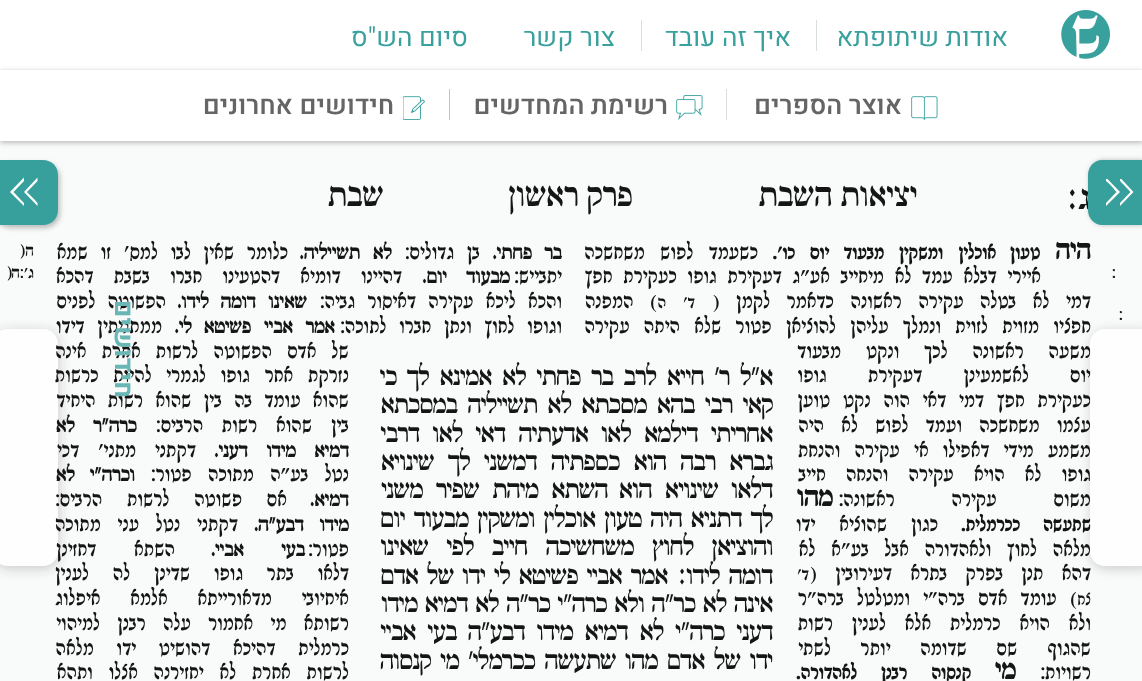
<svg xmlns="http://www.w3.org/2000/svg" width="1142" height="681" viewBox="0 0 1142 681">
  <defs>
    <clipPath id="clip1"><rect x="816" y="20" width="1" height="31"/></clipPath>
    <clipPath id="clip2"><rect x="641" y="20" width="1" height="31"/></clipPath>
    <filter id="blur1" x="-50%" y="-200%" width="200%" height="500%"><feGaussianBlur stdDeviation="2.5"/></filter>
    <clipPath id="clip3"><rect x="726" y="89" width="1" height="31"/></clipPath>
    <clipPath id="clip4"><path d="M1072 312H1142V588H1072ZM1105 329H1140C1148.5 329 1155 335.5 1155 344V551C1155 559.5 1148.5 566 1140 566H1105C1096.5 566 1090 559.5 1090 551V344C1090 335.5 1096.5 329 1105 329Z" clip-rule="evenodd"/></clipPath>
    <filter id="blur2" x="-50%" y="-200%" width="200%" height="500%"><feGaussianBlur stdDeviation="6"/></filter>
    <clipPath id="clip5"><path d="M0 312H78V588H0ZM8 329H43C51.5 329 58 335.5 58 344V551C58 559.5 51.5 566 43 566H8C-.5 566-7 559.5-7 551V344C-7 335.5-.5 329 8 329Z" clip-rule="evenodd"/></clipPath>
    <clipPath id="clip6"><rect x="1120" y="179" width="14" height="29"/></clipPath>
    <clipPath id="clip7"><rect x="1106" y="179" width="14" height="29"/></clipPath>
  </defs>
  <rect width="100%" height="100%" fill="#ffffff"/>
  <image x="1061" y="10" width="49" height="49" href="img1.png"/>
  <text x="1008" y="46" font-family="Heebo" font-size="26.25" direction="rtl" fill="#38a09d">אודות שיתופתא</text>
  <g clip-path="url(#clip1)">
    <path d="M816 51V20" fill="none" stroke="#bec7c6" stroke-width="1.2"/>
  </g>
  <text x="791" y="46" font-family="Heebo" font-size="26.25" direction="rtl" fill="#38a09d">איך זה עובד</text>
  <g clip-path="url(#clip2)">
    <path d="M641 51V20" fill="none" stroke="#bec7c6" stroke-width="1.2"/>
  </g>
  <text x="615" y="46" font-family="Heebo" font-size="26.25" direction="rtl" fill="#38a09d">צור קשר</text>
  <text x="468" y="46" font-family="Heebo" font-size="26.25" direction="rtl" fill="#38a09d">סיום הש"ס</text>
  <rect x="0" y="141" width="1142" height="540" fill="#f9fafa"/>
  <rect x="0" y="71" width="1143" height="72" fill="#000000" fill-opacity="0.25" filter="url(#blur1)"/>
  <rect x="0" y="70" width="1142" height="71" fill="#ffffff"/>
  <image x="911" y="96" width="27" height="24" href="img2.png"/>
  <text x="902" y="114" font-family="Heebo" font-size="26.25" font-weight="500" direction="rtl" fill="#656565">אוצר הספרים</text>
  <g clip-path="url(#clip3)">
    <path d="M727 89V120" fill="none" stroke="#bec7c6" stroke-width="1.2"/>
  </g>
  <image x="676" y="95" width="27" height="25" href="img3.png"/>
  <text x="668" y="114" font-family="Heebo" font-size="26.25" font-weight="500" direction="rtl" fill="#656565">רשימת המחדשים</text>
  <rect x="449" y="89" width="1" height="31" fill="#bec7c6"/>
  <image x="403" y="96" width="22" height="24" href="img4.png"/>
  <text x="394" y="114" font-family="Heebo" font-size="26.25" font-weight="500" direction="rtl" fill="#656565">חידושים אחרונים</text>
  <text x="1090" y="209" font-family="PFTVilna" font-size="32.5" direction="rtl" fill="#151515">ג</text>
  <text x="1069" y="209" font-family="PFTVilna" font-size="32.5" fill="#151515">:</text>
  <text x="918" y="206" font-family="PFTVilna" font-size="32.5" direction="rtl" fill="#151515">יציאות השבת</text>
  <text x="633" y="206" font-family="PFTVilna" font-size="32.5" direction="rtl" fill="#151515">פרק ראשון</text>
  <text x="384" y="206" font-family="PFTVilna" font-size="32.5" direction="rtl" fill="#151515">שבת</text>
  <text x="1091" y="259" font-family="'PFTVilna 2'" font-size="26.25" font-weight="bold" direction="rtl" fill="#151515">היה</text>
  <text x="1040" y="259" font-family="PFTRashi" font-size="19" font-weight="bold" direction="rtl" fill="#151515">טעון</text>
  <text x="996" y="259" font-family="PFTRashi" font-size="19" font-weight="bold" direction="rtl" fill="#151515">אוכלין</text>
  <text x="943" y="259" font-family="PFTRashi" font-size="19" font-weight="bold" direction="rtl" fill="#151515">ומשקין</text>
  <text x="884" y="259" font-family="PFTRashi" font-size="19" font-weight="bold" direction="rtl" fill="#151515">מבעוד</text>
  <text x="829" y="259" font-family="PFTRashi" font-size="19" font-weight="bold" direction="rtl" fill="#151515">יום</text>
  <text x="795" y="259" font-family="PFTRashi" font-size="19" font-weight="bold" direction="rtl" fill="#151515">כו'.</text>
  <text x="758" y="259" word-spacing="9.5" font-family="PFTRashi" font-size="20.6" direction="rtl" fill="#151515">כשעמד לפוש משחשכה</text>
  <text x="1041" y="283" word-spacing="5" font-family="PFTRashi" font-size="20.6" direction="rtl" fill="#151515">איירי דבלא עמד לא מיחייב אע"ג דעקירת גופו כעקירת חפץ</text>
  <text x="1091" y="308" word-spacing="10.75" font-family="PFTRashi" font-size="20.6" direction="rtl" fill="#151515">דמי לא בטלה עקירה ראשונה כדאמר לקמן (</text>
  <text x="695" y="308" font-family="PFTRashi" font-size="17" direction="rtl" fill="#151515">ד'</text>
  <text x="666" y="308" font-family="PFTRashi" font-size="17" direction="rtl" fill="#151515">ה</text>
  <text x="657" y="308" word-spacing="10.75" font-family="PFTRashi" font-size="20.6" direction="rtl" fill="#151515">) המפנה</text>
  <text x="1091" y="333" word-spacing="8.5" font-family="PFTRashi" font-size="20.6" direction="rtl" fill="#151515">חפציו מזוית לזוית ונמלך עליהן להוציאן פטור שלא היתה עקירה</text>
  <text x="1091" y="358" word-spacing="19" font-family="PFTRashi" font-size="20.6" direction="rtl" fill="#151515">משעה ראשונה לכך ונקט מבעוד</text>
  <text x="1091" y="382" word-spacing="35.5" font-family="PFTRashi" font-size="20.6" direction="rtl" fill="#151515">יום לאשמעינן דעקירת גופו</text>
  <text x="1091" y="407" word-spacing="7" font-family="PFTRashi" font-size="20.6" direction="rtl" fill="#151515">כעקירת חפץ דמי דאי הוה נקט טוען</text>
  <text x="1091" y="432" word-spacing="11.5" font-family="PFTRashi" font-size="20.6" direction="rtl" fill="#151515">עצמו משחשכה ועמד לפוש לא היה</text>
  <text x="1091" y="457" word-spacing="8.5" font-family="PFTRashi" font-size="20.6" direction="rtl" fill="#151515">משמע מידי דאפילו אי עקירה והנחת</text>
  <text x="1091" y="481" word-spacing="14.5" font-family="PFTRashi" font-size="20.6" direction="rtl" fill="#151515">גופו לא הויא עקירה והנחה חייב</text>
  <text x="1091" y="506" word-spacing="51" font-family="PFTRashi" font-size="20.6" direction="rtl" fill="#151515">משום עקירה ראשונה:</text>
  <text x="833" y="506" font-family="'PFTVilna 2'" font-size="26.25" font-weight="bold" direction="rtl" fill="#151515">מהו</text>
  <g clip-path="url(#clip4)">
    <rect x="1091" y="331" width="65" height="238" rx="15" fill="#000000" fill-opacity="0.18" filter="url(#blur2)"/>
  </g>
  <text x="1091" y="531" font-family="PFTRashi" font-size="19" font-weight="bold" direction="rtl" fill="#151515">שתעשה</text>
  <text x="1020" y="531" font-family="PFTRashi" font-size="19" font-weight="bold" direction="rtl" fill="#151515">ככרמלית.</text>
  <text x="938" y="531" word-spacing="18" font-family="PFTRashi" font-size="20.6" direction="rtl" fill="#151515">כגון שהוציא ידו</text>
  <text x="1091" y="556" word-spacing="10" font-family="PFTRashi" font-size="20.6" direction="rtl" fill="#151515">מלאה לחוץ ולאהדורה אבל בע"א לא</text>
  <text x="1091" y="580" word-spacing="12.5" font-family="PFTRashi" font-size="20.6" direction="rtl" fill="#151515">דהא תנן בפרק בתרא דעירובין (</text>
  <text x="809" y="580" font-family="PFTRashi" font-size="17" direction="rtl" fill="#151515">ד'</text>
  <text x="1091" y="605" font-family="PFTRashi" font-size="17" direction="rtl" fill="#151515">צח</text>
  <text x="1077" y="605" word-spacing="7.5" font-family="PFTRashi" font-size="20.6" direction="rtl" fill="#151515">) עומד אדם ברה"י ומטלטל ברה"ר</text>
  <text x="1091" y="630" word-spacing="13" font-family="PFTRashi" font-size="20.6" direction="rtl" fill="#151515">ולא הויא כרמלית אלא לענין רשות</text>
  <text x="1091" y="655" word-spacing="24" font-family="PFTRashi" font-size="20.6" direction="rtl" fill="#151515">שהגוף שם שדומה יותר לשתי</text>
  <text x="1091" y="679" font-family="PFTRashi" font-size="20.6" direction="rtl" fill="#151515">רשויות:</text>
  <text x="1016" y="679" font-family="'PFTVilna 2'" font-size="26.25" font-weight="bold" direction="rtl" fill="#151515">מי</text>
  <text x="971" y="679" font-family="PFTRashi" font-size="19" font-weight="bold" direction="rtl" fill="#151515">קנסוה</text>
  <text x="907" y="679" font-family="PFTRashi" font-size="19" font-weight="bold" direction="rtl" fill="#151515">רבנן</text>
  <text x="857" y="679" font-family="PFTRashi" font-size="19" font-weight="bold" direction="rtl" fill="#151515">לאהדורה.</text>
  <text x="562" y="259" font-family="'PFTVilna 2'" font-size="19" font-weight="bold" direction="rtl" fill="#151515">בר</text>
  <text x="532" y="259" font-family="'PFTVilna 2'" font-size="19" font-weight="bold" direction="rtl" fill="#151515">פחתי.</text>
  <text x="480" y="259" word-spacing="7" font-family="PFTRashi" font-size="20.6" direction="rtl" fill="#151515">בן גדולים:</text>
  <text x="392" y="259" font-family="'PFTVilna 2'" font-size="19" font-weight="bold" direction="rtl" fill="#151515">לא</text>
  <text x="360" y="259" font-family="'PFTVilna 2'" font-size="19" font-weight="bold" direction="rtl" fill="#151515">תשייליה.</text>
  <text x="288" y="259" word-spacing="7" font-family="PFTRashi" font-size="20.6" direction="rtl" fill="#151515">כלומר שאין לבו למס' זו שמא</text>
  <text x="562" y="283" font-family="PFTRashi" font-size="20.6" direction="rtl" fill="#151515">יתבייש:</text>
  <text x="510" y="283" font-family="'PFTVilna 2'" font-size="19" font-weight="bold" direction="rtl" fill="#151515">מבעוד</text>
  <text x="447" y="283" font-family="'PFTVilna 2'" font-size="19" font-weight="bold" direction="rtl" fill="#151515">יום.</text>
  <text x="402" y="283" word-spacing="14.5" font-family="PFTRashi" font-size="20.6" direction="rtl" fill="#151515">דהיינו דומיא דהטעינו חברו בשבת דהכא</text>
  <text x="562" y="308" word-spacing="6.5" font-family="PFTRashi" font-size="20.6" direction="rtl" fill="#151515">והכא ליכא עקירה דאיסור גביה:</text>
  <text x="307" y="308" font-family="'PFTVilna 2'" font-size="19" font-weight="bold" direction="rtl" fill="#151515">שאינו</text>
  <text x="256" y="308" font-family="'PFTVilna 2'" font-size="19" font-weight="bold" direction="rtl" fill="#151515">דומה</text>
  <text x="209" y="308" font-family="'PFTVilna 2'" font-size="19" font-weight="bold" direction="rtl" fill="#151515">לידו.</text>
  <text x="166" y="308" word-spacing="6.5" font-family="PFTRashi" font-size="20.6" direction="rtl" fill="#151515">הפשוטה לפנים</text>
  <text x="562" y="333" word-spacing="7" font-family="PFTRashi" font-size="20.6" direction="rtl" fill="#151515">וגופו לחוץ ונתן חברו לתוכה:</text>
  <text x="335" y="333" font-family="'PFTVilna 2'" font-size="19" font-weight="bold" direction="rtl" fill="#151515">אמר</text>
  <text x="293" y="333" font-family="'PFTVilna 2'" font-size="19" font-weight="bold" direction="rtl" fill="#151515">אביי</text>
  <text x="251" y="333" font-family="'PFTVilna 2'" font-size="19" font-weight="bold" direction="rtl" fill="#151515">פשיטא</text>
  <text x="192" y="333" font-family="'PFTVilna 2'" font-size="19" font-weight="bold" direction="rtl" fill="#151515">לי.</text>
  <g clip-path="url(#clip5)">
    <rect x="-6" y="331" width="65" height="238" rx="15" fill="#414141" fill-opacity="0.25" filter="url(#blur2)"/>
  </g>
  <rect x="-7" y="329" width="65" height="237" rx="15" fill="#ffffff" fill-opacity="0.74"/>
  <text x="162" y="333" word-spacing="7" font-family="PFTRashi" font-size="20.6" direction="rtl" fill="#151515">ממתניתין דידו</text>
  <text x="349" y="358" word-spacing="9.5" font-family="PFTRashi" font-size="20.6" direction="rtl" fill="#151515">של אדם הפשוטה לרשות אחרת אינה</text>
  <text x="349" y="382" word-spacing="9" font-family="PFTRashi" font-size="20.6" direction="rtl" fill="#151515">נזרקת אחר גופו לגמרי להיות כרשות</text>
  <text x="349" y="407" word-spacing="6.5" font-family="PFTRashi" font-size="20.6" direction="rtl" fill="#151515">שהוא עומד בה בין שהוא רשות היחיד</text>
  <text x="349" y="432" word-spacing="13" font-family="PFTRashi" font-size="20.6" direction="rtl" fill="#151515">בין שהוא רשות הרבים:</text>
  <text x="137" y="432" font-family="'PFTVilna 2'" font-size="19" font-weight="bold" direction="rtl" fill="#151515">כרה"ר</text>
  <text x="75" y="432" font-family="'PFTVilna 2'" font-size="19" font-weight="bold" direction="rtl" fill="#151515">לא</text>
  <text x="349" y="457" font-family="'PFTVilna 2'" font-size="19" font-weight="bold" direction="rtl" fill="#151515">דמיא</text>
  <text x="296" y="457" font-family="'PFTVilna 2'" font-size="19" font-weight="bold" direction="rtl" fill="#151515">מידו</text>
  <text x="248" y="457" font-family="'PFTVilna 2'" font-size="19" font-weight="bold" direction="rtl" fill="#151515">דעני.</text>
  <text x="196" y="457" word-spacing="13" font-family="PFTRashi" font-size="20.6" direction="rtl" fill="#151515">דקתני מתני' דכי</text>
  <text x="349" y="481" word-spacing="10.5" font-family="PFTRashi" font-size="20.6" direction="rtl" fill="#151515">נטל בע"ה מתוכה פטור:</text>
  <text x="135" y="481" font-family="'PFTVilna 2'" font-size="19" font-weight="bold" direction="rtl" fill="#151515">וכרה"י</text>
  <text x="75" y="481" font-family="'PFTVilna 2'" font-size="19" font-weight="bold" direction="rtl" fill="#151515">לא</text>
  <text x="349" y="506" font-family="'PFTVilna 2'" font-size="19" font-weight="bold" direction="rtl" fill="#151515">דמיא.</text>
  <text x="287" y="506" word-spacing="19" font-family="PFTRashi" font-size="20.6" direction="rtl" fill="#151515">אם פשוטה לרשות הרבים:</text>
  <text x="349" y="531" font-family="'PFTVilna 2'" font-size="19" font-weight="bold" direction="rtl" fill="#151515">מידו</text>
  <text x="304" y="531" font-family="'PFTVilna 2'" font-size="19" font-weight="bold" direction="rtl" fill="#151515">דבע"ה.</text>
  <text x="238" y="531" word-spacing="11" font-family="PFTRashi" font-size="20.6" direction="rtl" fill="#151515">דקתני נטל עני מתוכה</text>
  <text x="349" y="556" font-family="PFTRashi" font-size="20.6" direction="rtl" fill="#151515">פטור:</text>
  <text x="305" y="556" font-family="'PFTVilna 2'" font-size="19" font-weight="bold" direction="rtl" fill="#151515">בעי</text>
  <text x="244" y="556" font-family="'PFTVilna 2'" font-size="19" font-weight="bold" direction="rtl" fill="#151515">אביי.</text>
  <text x="175" y="556" word-spacing="32" font-family="PFTRashi" font-size="20.6" direction="rtl" fill="#151515">השתא דחזינן</text>
  <text x="349" y="580" word-spacing="18" font-family="PFTRashi" font-size="20.6" direction="rtl" fill="#151515">דלאו בתר גופו שדינן לה לענין</text>
  <text x="349" y="605" word-spacing="24" font-family="PFTRashi" font-size="20.6" direction="rtl" fill="#151515">איחיובי מדאורייתא אלמא איפלוג</text>
  <text x="349" y="630" word-spacing="11.5" font-family="PFTRashi" font-size="20.6" direction="rtl" fill="#151515">רשותא מי אחמור עלה רבנן למיהוי</text>
  <text x="349" y="655" word-spacing="17" font-family="PFTRashi" font-size="20.6" direction="rtl" fill="#151515">כרמלית דהיכא דהושיט ידו מלאה</text>
  <text x="349" y="679" word-spacing="10" font-family="PFTRashi" font-size="20.6" direction="rtl" fill="#151515">לרשות אחרת לא יחזירנה אצלו ותהא</text>
  <text x="34" y="256" font-family="PFTVilna" font-size="16" font-weight="bold" direction="rtl" fill="#151515">ה</text>
  <text x="20" y="256" font-family="PFTVilna" font-size="16" font-weight="bold" fill="#151515">)</text>
  <text x="34" y="278" font-family="PFTRashi" font-size="16" direction="rtl" fill="#151515">ג׳</text>
  <text x="20" y="278" font-family="PFTRashi" font-size="16" fill="#151515">:</text>
  <text x="20" y="278" font-family="PFTVilna" font-size="16" font-weight="bold" direction="rtl" fill="#151515">ה</text>
  <text x="7" y="278" font-family="PFTVilna" font-size="16" font-weight="bold" fill="#151515">)</text>
  <text x="1112" y="278" font-family="PFTRashi" font-size="16" fill="#151515">:</text>
  <text x="1119" y="320" font-family="PFTRashi" font-size="16" fill="#151515">:</text>
  <text x="773" y="385" word-spacing="4.75" font-family="PFTVilna" font-size="25.4" letter-spacing="-0.75" direction="rtl" fill="#151515">א"ל ר' חייא לרב בר פחתי לא אמינא לך כי</text>
  <text x="773" y="413" word-spacing="4.5" font-family="PFTVilna" font-size="25.4" letter-spacing="-0.75" direction="rtl" fill="#151515">קאי רבי בהא מסכתא לא תשייליה במסכתא</text>
  <text x="773" y="442" word-spacing="7.25" font-family="PFTVilna" font-size="25.4" letter-spacing="-0.75" direction="rtl" fill="#151515">אחריתי דילמא לאו אדעתיה דאי לאו דרבי</text>
  <text x="773" y="470" word-spacing="8.25" font-family="PFTVilna" font-size="25.4" letter-spacing="-0.75" direction="rtl" fill="#151515">גברא רבה הוא כספתיה דמשני לך שינויא</text>
  <text x="773" y="498" word-spacing="7.5" font-family="PFTVilna" font-size="25.4" letter-spacing="-0.75" direction="rtl" fill="#151515">דלאו שינויא הוא</text>
  <text x="608" y="498" word-spacing="7.5" font-family="PFTVilna" font-size="25.4" letter-spacing="-0.75" direction="rtl" fill="#151515">השתא מיהת שפיר משני</text>
  <text x="773" y="527" word-spacing="3" font-family="PFTVilna" font-size="25.4" letter-spacing="-0.75" direction="rtl" fill="#151515">לך דתניא היה טעון אוכלין ומשקין מבעוד יום</text>
  <text x="773" y="555" word-spacing="12.5" font-family="PFTVilna" font-size="25.4" letter-spacing="-0.75" direction="rtl" fill="#151515">והוציאן לחוץ משחשיכה חייב לפי שאינו</text>
  <text x="773" y="584" word-spacing="3" font-family="PFTVilna" font-size="25.4" letter-spacing="-0.75" direction="rtl" fill="#151515">דומה לידו:</text>
  <text x="668" y="584" word-spacing="3" font-family="PFTVilna" font-size="25.4" letter-spacing="-0.75" direction="rtl" fill="#151515">אמר אביי פשיטא לי ידו של אדם</text>
  <text x="773" y="612" word-spacing="1.5" font-family="PFTVilna" font-size="25.4" letter-spacing="-0.75" direction="rtl" fill="#151515">אינה לא כר"ה ולא כרה"י כר"ה לא דמיא מידו</text>
  <text x="773" y="640" word-spacing="6" font-family="PFTVilna" font-size="25.4" letter-spacing="-0.75" direction="rtl" fill="#151515">דעני כרה"י לא דמיא מידו דבע"ה</text>
  <text x="457" y="640" word-spacing="6" font-family="PFTVilna" font-size="25.4" letter-spacing="-0.75" direction="rtl" fill="#151515">בעי אביי</text>
  <text x="773" y="669" word-spacing="3.5" font-family="PFTVilna" font-size="25.4" letter-spacing="-0.75" direction="rtl" fill="#151515">ידו של אדם מהו שתעשה ככרמלי' מי קנסוה</text>
  <rect x="1089" y="160" width="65" height="65" rx="15" fill="#000000" fill-opacity="0.25" filter="url(#blur1)"/>
  <path d="M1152 225H1102C1094 225 1088 218 1088 210V175C1088 167 1094 160 1102 160H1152Z" fill="#37a09d"/>
  <g clip-path="url(#clip6)">
    <path d="M1123.5 184.5L1130.5 192L1120 203V206L1133.5 192L1120 177.5V181Z" fill="#ffffff"/>
  </g>
  <g clip-path="url(#clip7)">
    <path d="M1110 184.5L1116.5 192L1106 203V206L1120 192L1106 177.5V181Z" fill="#ffffff"/>
  </g>
  <rect x="1090" y="329" width="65" height="237" rx="15" fill="#ffffff" fill-opacity="0.74"/>
  <text x="1221" y="496" transform="rotate(-90 1221 496)" font-family="Heebo" font-size="26.25" font-weight="bold" direction="rtl" fill="#69b7b5">מפרשים</text>
  <rect x="-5" y="163" width="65" height="65" rx="15" fill="#000000" fill-opacity="0.25" filter="url(#blur1)"/>
  <path d="M-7 160H43C51.5 160 58 166.5 58 175V210C58 218.5 51.5 225 43 225H-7Z" fill="#37a09d"/>
  <path d="M34 199L27 192L37.5 181V177.5L24 192L37.5 206V203ZM20 199L13.5 192L24 181V177.5L10 192L24 206V203Z" fill="#ffffff"/>
  <text x="115" y="398" transform="rotate(90 115 398)" font-family="Heebo" font-size="26.25" font-weight="bold" direction="rtl" fill="#69b7b5">חידושים</text>
</svg>
